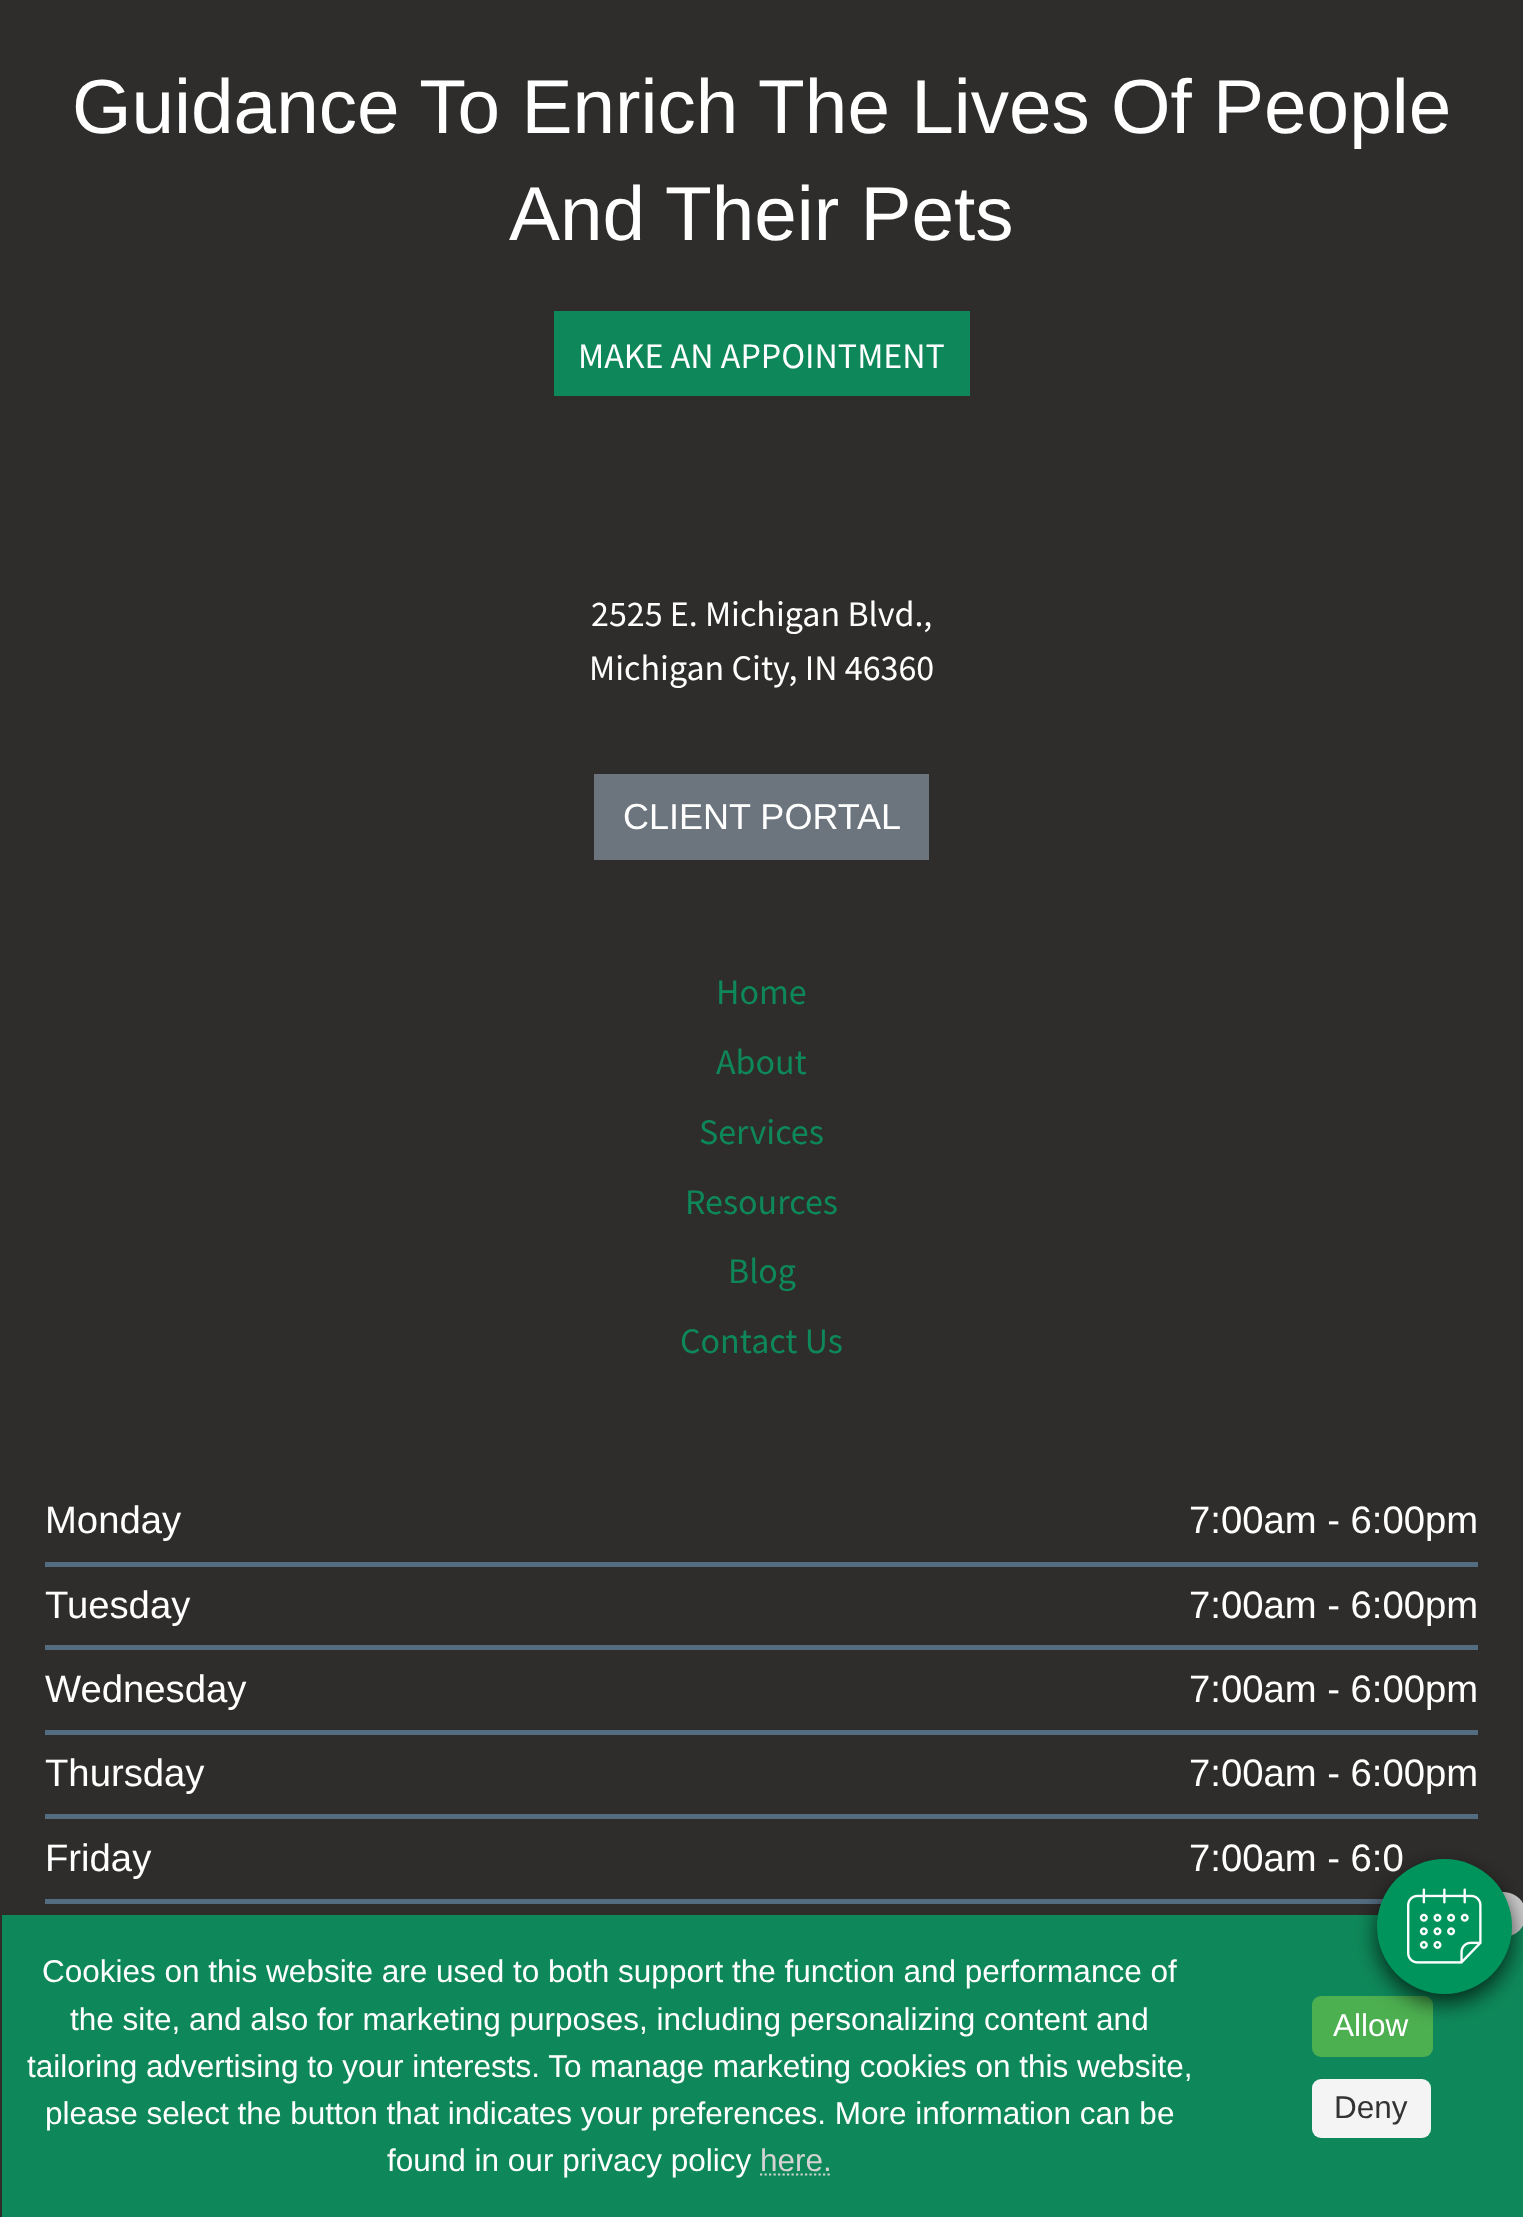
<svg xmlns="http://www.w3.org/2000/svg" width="1523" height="2217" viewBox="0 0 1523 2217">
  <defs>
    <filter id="blur1" x="-50%" y="-200%" width="200%" height="500%"><feGaussianBlur stdDeviation="11"/></filter>
  </defs>
  <rect width="100%" height="100%" fill="#2e2d2b"/>
  <text x="72" y="133" font-family="Liberation Sans" font-size="76.5" fill="#ffffff">Guidance To Enrich The Lives Of People</text>
  <text x="509" y="240" font-family="Liberation Sans" font-size="76.5" fill="#ffffff">And Their Pets</text>
  <rect x="556" y="313" width="412" height="81" fill="#0e885a"/>
  <rect x="555" y="312" width="414" height="83" fill="none" stroke="#0e885a" stroke-width="2"/>
  <text x="578" y="368" font-family="Source Sans Pro" font-size="36" fill="#ffffff">MAKE AN APPOINTMENT</text>
  <text x="591" y="626" font-family="Source Sans Pro" font-size="36" fill="#ffffff">2525 E. Michigan Blvd.,</text>
  <text x="589" y="680" font-family="Source Sans Pro" font-size="36" fill="#ffffff">Michigan City, IN 46360</text>
  <rect x="594" y="774" width="335" height="86" fill="#6c757d"/>
  <text x="623" y="829" font-family="Liberation Sans" font-size="36" fill="#ffffff">CLIENT PORTAL</text>
  <text x="716" y="1004" font-family="Source Sans Pro" font-size="36" fill="#0e885a">Home</text>
  <text x="716" y="1074" font-family="Source Sans Pro" font-size="36" fill="#0e885a">About</text>
  <text x="699" y="1144" font-family="Source Sans Pro" font-size="36" fill="#0e885a">Services</text>
  <text x="685" y="1214" font-family="Source Sans Pro" font-size="36" fill="#0e885a">Resources</text>
  <text x="728" y="1283" font-family="Source Sans Pro" font-size="36" fill="#0e885a">Blog</text>
  <text x="680" y="1353" font-family="Source Sans Pro" font-size="36" fill="#0e885a">Contact Us</text>
  <rect x="45" y="1562" width="1433" height="5" fill="#546c80"/>
  <text x="45" y="1533" font-family="Liberation Sans" font-size="38.25" fill="#ffffff">Monday</text>
  <text x="1189" y="1533" font-family="Liberation Sans" font-size="38.25" fill="#ffffff">7:00am - 6:00pm</text>
  <rect x="45" y="1645" width="1433" height="5" fill="#546c80"/>
  <text x="45" y="1618" font-family="Liberation Sans" font-size="38.25" fill="#ffffff">Tuesday</text>
  <text x="1189" y="1618" font-family="Liberation Sans" font-size="38.25" fill="#ffffff">7:00am - 6:00pm</text>
  <rect x="45" y="1730" width="1433" height="5" fill="#546c80"/>
  <text x="45" y="1702" font-family="Liberation Sans" font-size="38.25" fill="#ffffff">Wednesday</text>
  <text x="1189" y="1702" font-family="Liberation Sans" font-size="38.25" fill="#ffffff">7:00am - 6:00pm</text>
  <rect x="45" y="1814" width="1433" height="5" fill="#546c80"/>
  <text x="45" y="1786" font-family="Liberation Sans" font-size="38.25" fill="#ffffff">Thursday</text>
  <text x="1189" y="1786" font-family="Liberation Sans" font-size="38.25" fill="#ffffff">7:00am - 6:00pm</text>
  <rect x="45" y="1899" width="1338" height="5" fill="#546c80"/>
  <text x="45" y="1871" font-family="Liberation Sans" font-size="38.25" fill="#ffffff">Friday</text>
  <text x="1189" y="1871" font-family="Liberation Sans" font-size="38.25" fill="#ffffff">7:00am - 6:0</text>
  <rect x="2" y="1915" width="1521" height="302" fill="#0e885a"/>
  <circle cx="1503.5" cy="1914.5" r="22.5" fill="#cccccc"/>
  <text x="42" y="1982" font-family="Liberation Sans" font-size="31.5" fill="#ffffff">Cookies on this website are used to both support the function and performance of</text>
  <text x="70" y="2030" font-family="Liberation Sans" font-size="31.5" fill="#ffffff">the site, and also for marketing purposes, including personalizing content and</text>
  <text x="27" y="2077" font-family="Liberation Sans" font-size="31.5" fill="#ffffff">tailoring advertising to your interests. To manage marketing cookies on this website,</text>
  <text x="45" y="2124" font-family="Liberation Sans" font-size="31.5" fill="#ffffff">please select the button that indicates your preferences. More information can be</text>
  <text x="387" y="2171" font-family="Liberation Sans" font-size="31.5" fill="#ffffff">found in our privacy policy</text>
  <text x="760" y="2171" font-family="Liberation Sans" font-size="31.5" fill="#d3d3d3">here.</text>
  <path d="M760 2174.5H831.5" fill="none" stroke="#d3d3d3" stroke-width="2.2" stroke-dasharray="2.25 2.25"/>
  <rect x="1312" y="1996" width="121" height="61" rx="9" fill="#4caf50"/>
  <text x="1333" y="2036" font-family="Liberation Sans" font-size="31.5" fill="#ffffff">Allow</text>
  <rect x="1312" y="2079" width="119" height="59" rx="9" fill="#f4f4f4"/>
  <text x="1334" y="2118" font-family="Liberation Sans" font-size="31.5" fill="#333333">Deny</text>
  <rect x="1377" y="1868" width="135" height="135" rx="67.5" fill="#000000" fill-opacity="0.7" filter="url(#blur1)"/>
  <circle cx="1444.5" cy="1926.5" r="67.5" fill="#00945d"/>
  <image x="1407" y="1888" width="75" height="76" href="img1.png"/>
</svg>
